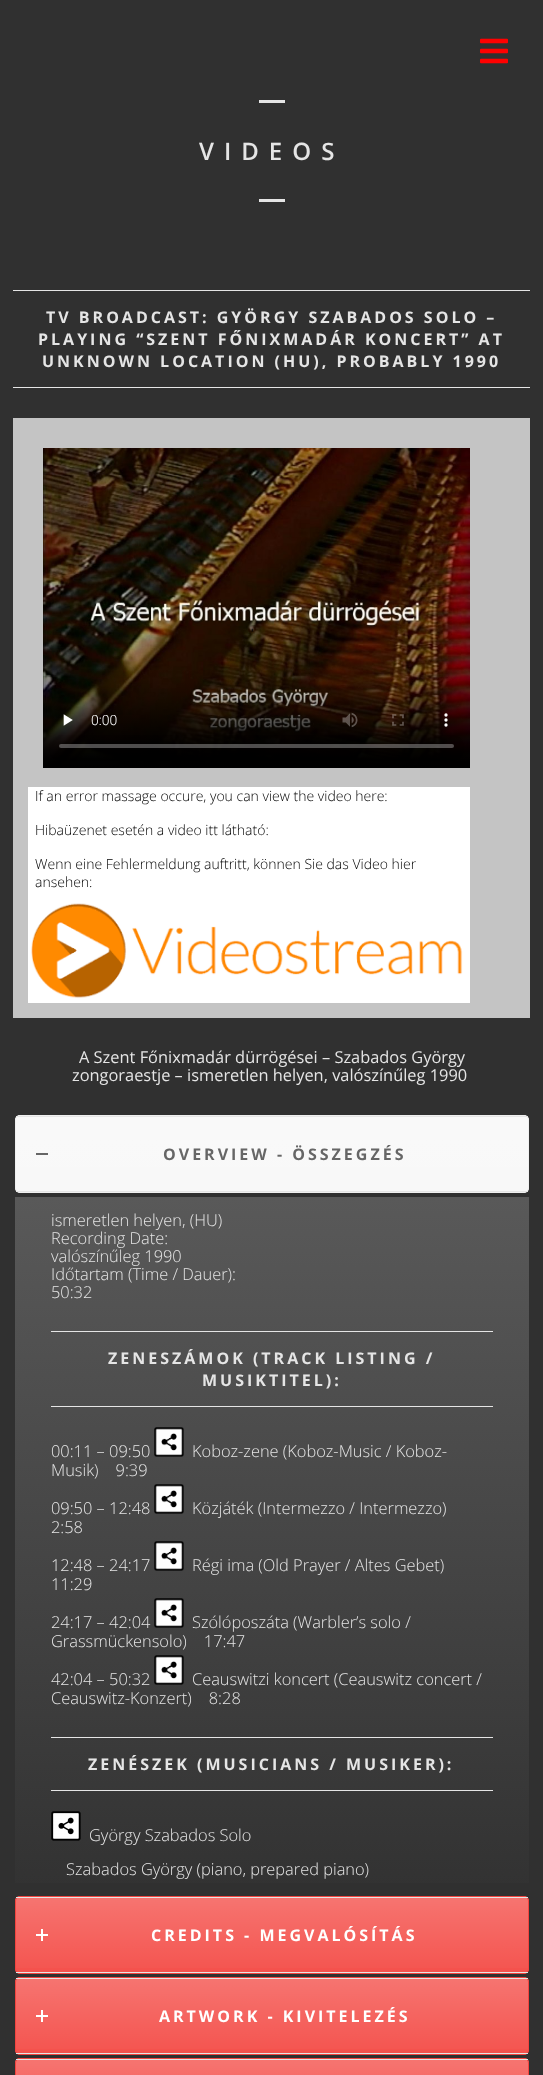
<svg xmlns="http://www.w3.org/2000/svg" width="543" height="2075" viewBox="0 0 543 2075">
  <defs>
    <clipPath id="clip1"><rect x="15" y="1115" width="514" height="78" rx="5"/></clipPath>
    <linearGradient id="g1" gradientUnits="userSpaceOnUse" x1="272" y1="1116" x2="272" y2="1192"><stop offset="0" stop-color="#ffffff" stop-opacity="0.2"/><stop offset="1" stop-color="#ffffff" stop-opacity="0.01"/></linearGradient>
    <linearGradient id="g2" gradientUnits="userSpaceOnUse" x1="272" y1="1197" x2="272" y2="1892"><stop offset="0" stop-color="#595959"/><stop offset="1" stop-color="#323232"/></linearGradient>
    <clipPath id="clip2"><rect x="15" y="1896" width="514" height="78" rx="5"/></clipPath>
    <linearGradient id="g3" gradientUnits="userSpaceOnUse" x1="272" y1="1897" x2="272" y2="1973"><stop offset="0" stop-color="#ffffff" stop-opacity="0.2"/><stop offset="1" stop-color="#ffffff" stop-opacity="0.01"/></linearGradient>
    <clipPath id="clip3"><rect x="15" y="1977" width="514" height="78" rx="5"/></clipPath>
    <linearGradient id="g4" gradientUnits="userSpaceOnUse" x1="272" y1="1978" x2="272" y2="2054"><stop offset="0" stop-color="#ffffff" stop-opacity="0.2"/><stop offset="1" stop-color="#ffffff" stop-opacity="0.01"/></linearGradient>
    <clipPath id="clip4"><rect x="15" y="2058" width="514" height="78" rx="5"/></clipPath>
    <linearGradient id="g5" gradientUnits="userSpaceOnUse" x1="272" y1="2059" x2="272" y2="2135"><stop offset="0" stop-color="#ffffff" stop-opacity="0.2"/><stop offset="1" stop-color="#ffffff" stop-opacity="0.01"/></linearGradient>
  </defs>
  <rect width="100%" height="100%" fill="#303030"/>
  <image x="480" y="38" width="28" height="26" href="img1.png"/>
  <rect x="259" y="100" width="26" height="3" fill="#e5e5e5"/>
  <text x="199" y="160" font-family="Open Sans" font-size="24" font-weight="600" letter-spacing="10" fill="#e5e5e5">VIDEOS</text>
  <rect x="259" y="199" width="26" height="3" fill="#e5e5e5"/>
  <rect x="13" y="290" width="517" height="1" fill="#e5e5e5"/>
  <rect x="13" y="387" width="517" height="1" fill="#e5e5e5"/>
  <text x="46" y="323" font-family="Open Sans" font-size="16" font-weight="bold" letter-spacing="3" fill="#e5e5e5">TV BROADCAST: GYÖRGY SZABADOS SOLO –</text>
  <text x="38" y="345" font-family="Open Sans" font-size="16" font-weight="bold" letter-spacing="3" fill="#e5e5e5">PLAYING “SZENT FŐNIXMADÁR KONCERT” AT</text>
  <text x="42" y="367" font-family="Open Sans" font-size="16" font-weight="bold" letter-spacing="3" fill="#e5e5e5">UNKNOWN LOCATION (HU), PROBABLY 1990</text>
  <rect x="13" y="418" width="517" height="600" fill="#c4c4c4"/>
  <image x="43" y="448" width="427" height="320" href="img2.png"/>
  <rect x="28" y="787" width="442" height="111" fill="#ffffff"/>
  <text x="35" y="801" font-family="Open Sans" font-size="14" font-weight="300" fill="#000000">If an error massage occure, you can view the video here:</text>
  <text x="35" y="835" font-family="Open Sans" font-size="14" font-weight="300" fill="#000000">Hibaüzenet esetén a video itt látható:</text>
  <text x="35" y="869" font-family="Open Sans" font-size="14" font-weight="300" fill="#000000">Wenn eine Fehlermeldung auftritt, können Sie das Video hier</text>
  <text x="35" y="887" font-family="Open Sans" font-size="14" font-weight="300" fill="#000000">ansehen:</text>
  <image x="28" y="898" width="442" height="105" href="img3.png"/>
  <text x="79" y="1063" font-family="Open Sans" font-size="16.4" fill="#e5e5e5">A Szent Főnixmadár dürrögései – Szabados György</text>
  <text x="72" y="1081" font-family="Open Sans" font-size="16.4" fill="#e5e5e5">zongoraestje – ismeretlen helyen, valószínűleg 1990</text>
  <rect x="15" y="1115" width="514" height="78" rx="5" fill="#f8f8f8"/>
  <g clip-path="url(#clip1)">
    <rect x="15" y="1117" width="514" height="70" fill="url(#g1)"/>
  </g>
  <rect x="15.5" y="1115.5" width="513" height="77" rx="4.5" fill="none" stroke="#f0f0f0"/>
  <rect x="16" y="1116" width="512" height="1" fill="#e5e5e5"/>
  <rect x="16" y="1191" width="512" height="1" fill="#e5e5e5"/>
  <rect x="36" y="1153" width="12" height="2" fill="#666666"/>
  <text x="163" y="1160" font-family="Open Sans" font-size="16" font-weight="bold" letter-spacing="3" fill="#666666">OVERVIEW - ÖSSZEGZÉS</text>
  <rect x="15" y="1197" width="514" height="686" fill="url(#g2)"/>
  <text x="51" y="1226" font-family="Open Sans" font-size="16.4" font-weight="300" fill="#e5e5e5">ismeretlen helyen, (HU)</text>
  <text x="51" y="1244" font-family="Open Sans" font-size="16.4" font-weight="300" fill="#e5e5e5">Recording Date:</text>
  <text x="51" y="1262" font-family="Open Sans" font-size="16.4" font-weight="300" fill="#e5e5e5">valószínűleg 1990</text>
  <text x="51" y="1280" font-family="Open Sans" font-size="16.4" font-weight="300" fill="#e5e5e5">Időtartam (Time / Dauer):</text>
  <text x="51" y="1298" font-family="Open Sans" font-size="16.4" font-weight="300" fill="#e5e5e5">50:32</text>
  <rect x="51" y="1331" width="442" height="1" fill="#e5e5e5"/>
  <rect x="51" y="1406" width="442" height="1" fill="#e5e5e5"/>
  <text x="108" y="1364" font-family="Open Sans" font-size="16" font-weight="bold" letter-spacing="3" fill="#e5e5e5">ZENESZÁMOK (TRACK LISTING /</text>
  <text x="202" y="1386" font-family="Open Sans" font-size="16" font-weight="bold" letter-spacing="3" fill="#e5e5e5">MUSIKTITEL):</text>
  <text x="51" y="1457" font-family="Open Sans" font-size="16.4" font-weight="300" fill="#e5e5e5">00:11 – 09:50</text>
  <image x="154" y="1427" width="30" height="30" href="img4.png"/>
  <text x="192" y="1457" font-family="Open Sans" font-size="16.4" font-weight="300" fill="#e5e5e5">Koboz-zene (Koboz-Music / Koboz-</text>
  <text x="51" y="1476" font-family="Open Sans" font-size="16.4" font-weight="300" fill="#e5e5e5" xml:space="preserve">Musik)    9:39</text>
  <text x="51" y="1514" font-family="Open Sans" font-size="16.4" font-weight="300" fill="#e5e5e5">09:50 – 12:48</text>
  <image x="154" y="1484" width="30" height="30" href="img5.png"/>
  <text x="192" y="1514" font-family="Open Sans" font-size="16.4" font-weight="300" fill="#e5e5e5">Közjáték (Intermezzo / Intermezzo)</text>
  <text x="51" y="1533" font-family="Open Sans" font-size="16.4" font-weight="300" fill="#e5e5e5">2:58</text>
  <text x="51" y="1571" font-family="Open Sans" font-size="16.4" font-weight="300" fill="#e5e5e5">12:48 – 24:17</text>
  <image x="154" y="1541" width="30" height="30" href="img6.png"/>
  <text x="192" y="1571" font-family="Open Sans" font-size="16.4" font-weight="300" fill="#e5e5e5">Régi ima (Old Prayer / Altes Gebet)</text>
  <text x="51" y="1590" font-family="Open Sans" font-size="16.4" font-weight="300" fill="#e5e5e5">11:29</text>
  <text x="51" y="1628" font-family="Open Sans" font-size="16.4" font-weight="300" fill="#e5e5e5">24:17 – 42:04</text>
  <image x="154" y="1598" width="30" height="30" href="img7.png"/>
  <text x="192" y="1628" font-family="Open Sans" font-size="16.4" font-weight="300" fill="#e5e5e5">Szólóposzáta (Warbler’s solo /</text>
  <text x="51" y="1647" font-family="Open Sans" font-size="16.4" font-weight="300" fill="#e5e5e5" xml:space="preserve">Grassmückensolo)    17:47</text>
  <text x="51" y="1685" font-family="Open Sans" font-size="16.4" font-weight="300" fill="#e5e5e5">42:04 – 50:32</text>
  <image x="154" y="1655" width="30" height="30" href="img8.png"/>
  <text x="192" y="1685" font-family="Open Sans" font-size="16.4" font-weight="300" fill="#e5e5e5">Ceauswitzi koncert (Ceauswitz concert /</text>
  <text x="51" y="1704" font-family="Open Sans" font-size="16.4" font-weight="300" fill="#e5e5e5" xml:space="preserve">Ceauswitz-Konzert)    8:28</text>
  <rect x="51" y="1737" width="442" height="1" fill="#e5e5e5"/>
  <rect x="51" y="1790" width="442" height="1" fill="#e5e5e5"/>
  <text x="88" y="1770" font-family="Open Sans" font-size="16" font-weight="bold" letter-spacing="3" fill="#e5e5e5">ZENÉSZEK (MUSICIANS / MUSIKER):</text>
  <image x="51" y="1811" width="30" height="30" href="img9.png"/>
  <text x="89" y="1841" font-family="Open Sans" font-size="16.4" font-weight="300" fill="#e5e5e5">György Szabados Solo</text>
  <text x="66" y="1875" font-family="Open Sans" font-size="16.4" font-weight="300" fill="#e5e5e5">Szabados György (piano, prepared piano)</text>
  <rect x="15" y="1896" width="514" height="78" rx="5" fill="#f4524d"/>
  <g clip-path="url(#clip2)">
    <rect x="15" y="1898" width="514" height="70" fill="url(#g3)"/>
  </g>
  <rect x="15.5" y="1896.5" width="513" height="77" rx="4.5" fill="none" stroke="#f3443f"/>
  <rect x="16" y="1897" width="512" height="1" fill="#e5e5e5"/>
  <rect x="16" y="1972" width="512" height="1" fill="#e5e5e5"/>
  <rect x="36" y="1934" width="12" height="2" fill="#ffffff"/>
  <rect x="41" y="1929" width="2" height="12" fill="#ffffff"/>
  <text x="151" y="1941" font-family="Open Sans" font-size="16" font-weight="bold" letter-spacing="3" fill="#ffffff">CREDITS - MEGVALÓSÍTÁS</text>
  <rect x="15" y="1977" width="514" height="78" rx="5" fill="#f4524d"/>
  <g clip-path="url(#clip3)">
    <rect x="15" y="1979" width="514" height="70" fill="url(#g4)"/>
  </g>
  <rect x="15.5" y="1977.5" width="513" height="77" rx="4.5" fill="none" stroke="#f3443f"/>
  <rect x="16" y="1978" width="512" height="1" fill="#e5e5e5"/>
  <rect x="16" y="2053" width="512" height="1" fill="#e5e5e5"/>
  <rect x="36" y="2015" width="12" height="2" fill="#ffffff"/>
  <rect x="41" y="2010" width="2" height="12" fill="#ffffff"/>
  <text x="159" y="2022" font-family="Open Sans" font-size="16" font-weight="bold" letter-spacing="3" fill="#ffffff">ARTWORK - KIVITELEZÉS</text>
  <path d="M20 2058H524C527 2058 529 2060 529 2063V2075H15V2063C15 2060 17 2058 20 2058Z" fill="#f4524d"/>
  <g clip-path="url(#clip4)">
    <rect x="15" y="2060" width="514" height="15" fill="url(#g5)"/>
  </g>
  <rect x="15.5" y="2058.5" width="513" height="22" rx="4.5" fill="none" stroke="#f3443f"/>
  <rect x="16" y="2059" width="512" height="1" fill="#e5e5e5"/>
</svg>
